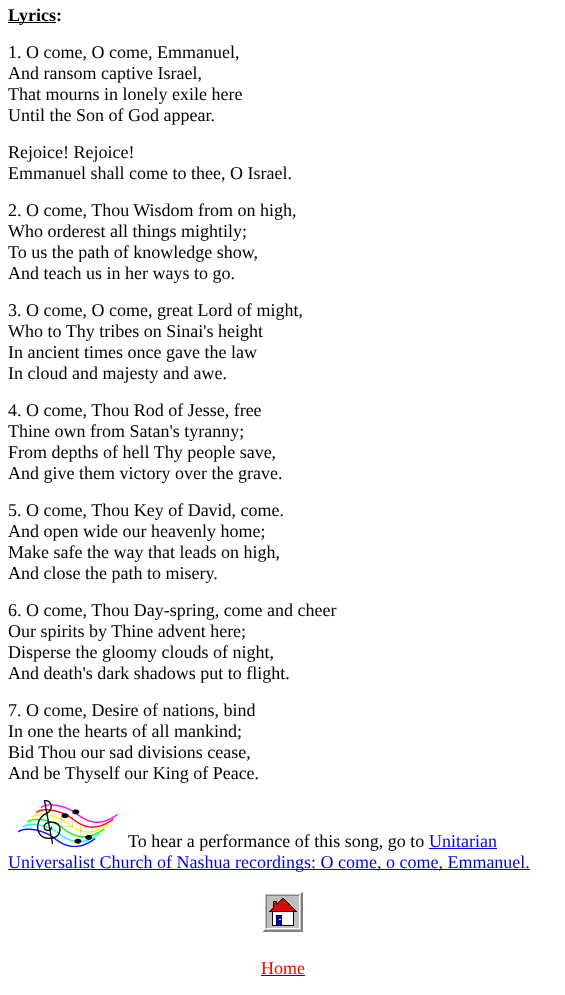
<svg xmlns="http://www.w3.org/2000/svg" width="565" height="995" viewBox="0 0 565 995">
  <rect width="100%" height="100%" fill="#ffffff"/>
  <rect x="8" y="22" width="48" height="1" fill="#000000"/>
  <text x="8" y="21" font-family="Liberation Serif" font-size="18" font-weight="bold" fill="#000000">Lyrics:</text>
  <text x="8" y="58" font-family="Liberation Serif" font-size="18" fill="#000000">1. O come, O come, Emmanuel,</text>
  <text x="8" y="79" font-family="Liberation Serif" font-size="18" fill="#000000">And ransom captive Israel,</text>
  <text x="8" y="100" font-family="Liberation Serif" font-size="18" fill="#000000">That mourns in lonely exile here</text>
  <text x="8" y="121" font-family="Liberation Serif" font-size="18" fill="#000000">Until the Son of God appear.</text>
  <text x="8" y="158" font-family="Liberation Serif" font-size="18" fill="#000000">Rejoice! Rejoice!</text>
  <text x="8" y="179" font-family="Liberation Serif" font-size="18" fill="#000000">Emmanuel shall come to thee, O Israel.</text>
  <text x="8" y="216" font-family="Liberation Serif" font-size="18" fill="#000000">2. O come, Thou Wisdom from on high,</text>
  <text x="8" y="237" font-family="Liberation Serif" font-size="18" fill="#000000">Who orderest all things mightily;</text>
  <text x="8" y="258" font-family="Liberation Serif" font-size="18" fill="#000000">To us the path of knowledge show,</text>
  <text x="8" y="279" font-family="Liberation Serif" font-size="18" fill="#000000">And teach us in her ways to go.</text>
  <text x="8" y="316" font-family="Liberation Serif" font-size="18" fill="#000000">3. O come, O come, great Lord of might,</text>
  <text x="8" y="337" font-family="Liberation Serif" font-size="18" fill="#000000">Who to Thy tribes on Sinai's height</text>
  <text x="8" y="358" font-family="Liberation Serif" font-size="18" fill="#000000">In ancient times once gave the law</text>
  <text x="8" y="379" font-family="Liberation Serif" font-size="18" fill="#000000">In cloud and majesty and awe.</text>
  <text x="8" y="416" font-family="Liberation Serif" font-size="18" fill="#000000">4. O come, Thou Rod of Jesse, free</text>
  <text x="8" y="437" font-family="Liberation Serif" font-size="18" fill="#000000">Thine own from Satan's tyranny;</text>
  <text x="8" y="458" font-family="Liberation Serif" font-size="18" fill="#000000">From depths of hell Thy people save,</text>
  <text x="8" y="479" font-family="Liberation Serif" font-size="18" fill="#000000">And give them victory over the grave.</text>
  <text x="8" y="516" font-family="Liberation Serif" font-size="18" fill="#000000">5. O come, Thou Key of David, come.</text>
  <text x="8" y="537" font-family="Liberation Serif" font-size="18" fill="#000000">And open wide our heavenly home;</text>
  <text x="8" y="558" font-family="Liberation Serif" font-size="18" fill="#000000">Make safe the way that leads on high,</text>
  <text x="8" y="579" font-family="Liberation Serif" font-size="18" fill="#000000">And close the path to misery.</text>
  <text x="8" y="616" font-family="Liberation Serif" font-size="18" fill="#000000">6. O come, Thou Day-spring, come and cheer</text>
  <text x="8" y="637" font-family="Liberation Serif" font-size="18" fill="#000000">Our spirits by Thine advent here;</text>
  <text x="8" y="658" font-family="Liberation Serif" font-size="18" fill="#000000">Disperse the gloomy clouds of night,</text>
  <text x="8" y="679" font-family="Liberation Serif" font-size="18" fill="#000000">And death's dark shadows put to flight.</text>
  <text x="8" y="716" font-family="Liberation Serif" font-size="18" fill="#000000">7. O come, Desire of nations, bind</text>
  <text x="8" y="737" font-family="Liberation Serif" font-size="18" fill="#000000">In one the hearts of all mankind;</text>
  <text x="8" y="758" font-family="Liberation Serif" font-size="18" fill="#000000">Bid Thou our sad divisions cease,</text>
  <text x="8" y="779" font-family="Liberation Serif" font-size="18" fill="#000000">And be Thyself our King of Peace.</text>
  <image x="18" y="800" width="100" height="47" href="img1.png"/>
  <text x="128" y="847" font-family="Liberation Serif" font-size="18" fill="#000000">To hear a performance of this song, go to</text>
  <text x="429" y="847" font-family="Liberation Serif" font-size="18" fill="#0000ee">Unitarian</text>
  <rect x="429" y="848" width="68" height="1" fill="#0000ee"/>
  <rect x="8" y="869" width="522" height="1" fill="#0000ee"/>
  <text x="8" y="868" font-family="Liberation Serif" font-size="18" fill="#0000ee">Universalist Church of Nashua recordings: O come, o come, Emmanuel.</text>
  <image x="263" y="892" width="40" height="40" href="img2.png"/>
  <text x="261" y="974" font-family="Liberation Serif" font-size="18" fill="#ff0000">Home</text>
  <rect x="261" y="975" width="44" height="1" fill="#0000ee"/>
</svg>
